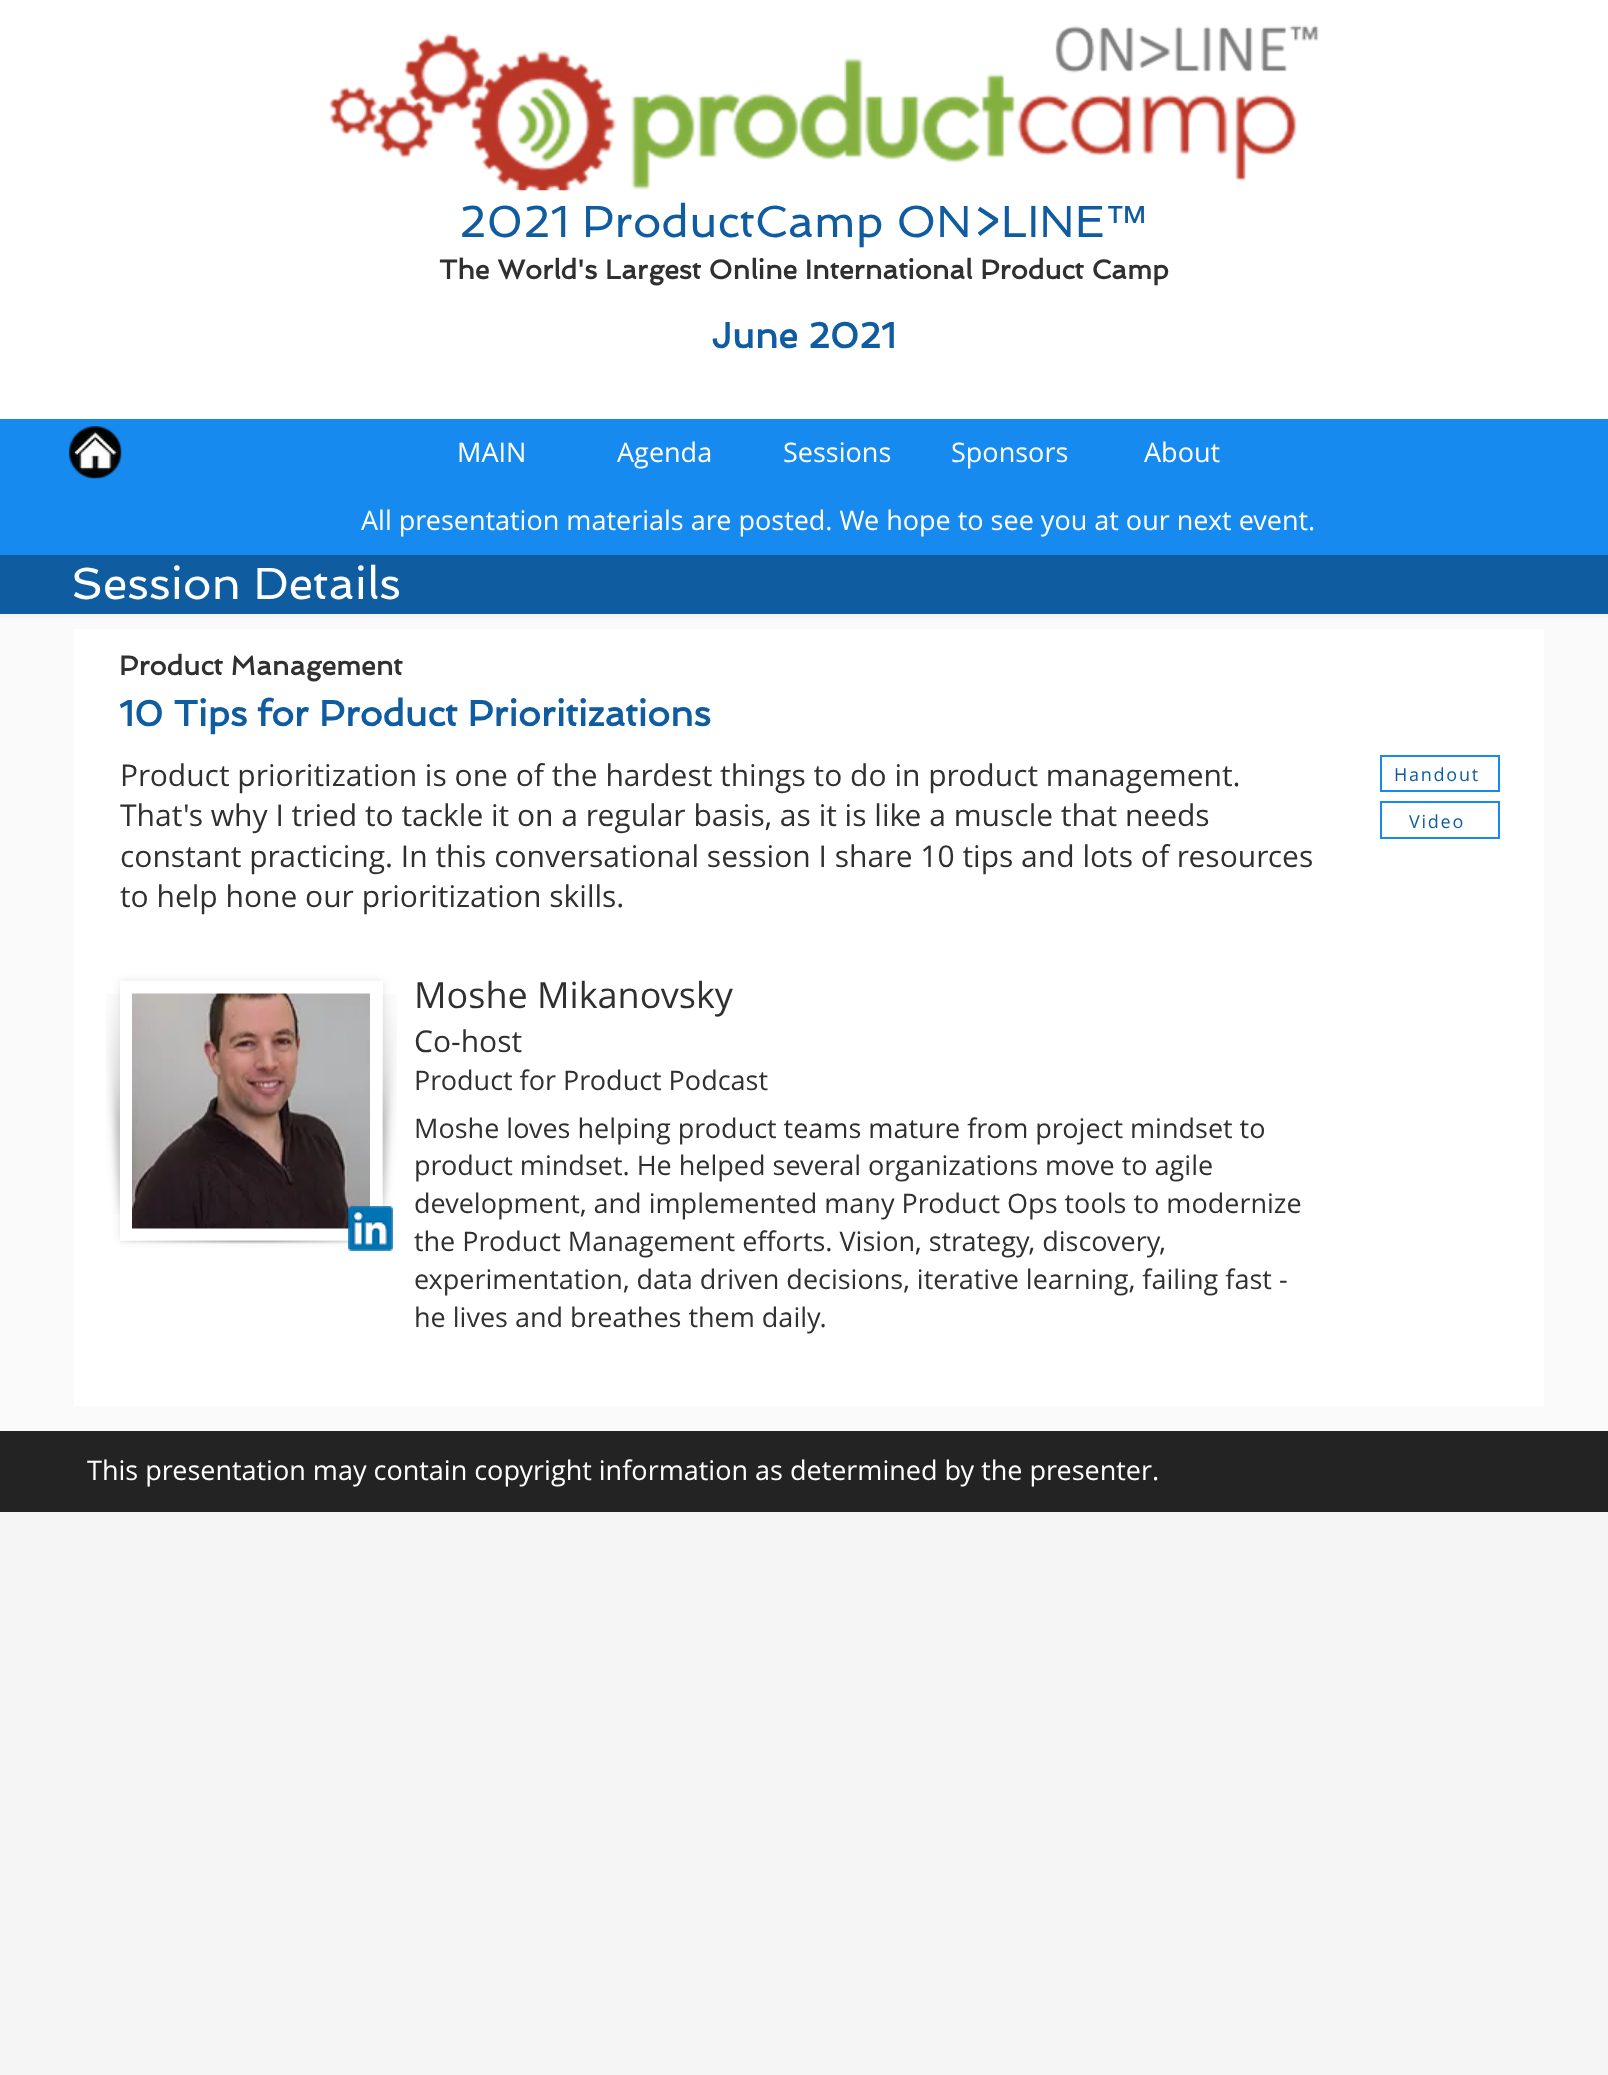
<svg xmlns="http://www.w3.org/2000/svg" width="1608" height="2075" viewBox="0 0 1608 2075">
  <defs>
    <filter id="blur1" x="-50%" y="-200%" width="200%" height="500%"><feGaussianBlur stdDeviation="4"/></filter>
  </defs>
  <rect width="100%" height="100%" fill="#f5f5f5"/>
  <rect x="0" y="0" width="1608" height="419" fill="#ffffff"/>
  <image x="329" y="25" width="990" height="166" href="img1.png"/>
  <text x="459" y="237" font-family="Spinnaker" font-size="45" fill="#0f5ca0">2021 ProductCamp ON&gt;LINE</text>
  <text x="1104" y="237" font-family="Liberation Sans" font-size="45" fill="#0f5ca0">™</text>
  <text x="439" y="279" font-family="Spinnaker" font-size="27" font-weight="bold" fill="#303030">The World's Largest Online International Product Camp</text>
  <text x="711" y="348" font-family="Spinnaker" font-size="36" font-weight="bold" fill="#0f5ca0">June 2021</text>
  <rect x="0" y="419" width="1608" height="136" fill="#178af0"/>
  <image x="69" y="426" width="53" height="53" href="img2.png"/>
  <text x="457" y="462" font-family="Open Sans" font-size="27" fill="#ffffff">MAIN</text>
  <text x="617" y="462" font-family="Open Sans" font-size="27" fill="#ffffff">Agenda</text>
  <text x="783" y="462" font-family="Open Sans" font-size="27" fill="#ffffff">Sessions</text>
  <text x="951" y="462" font-family="Open Sans" font-size="27" fill="#ffffff">Sponsors</text>
  <text x="1144" y="462" font-family="Open Sans" font-size="27" fill="#ffffff">About</text>
  <text x="361" y="530" font-family="Open Sans" font-size="27" fill="#ffffff">All presentation materials are posted. We hope to see you at our next event.</text>
  <rect x="0" y="555" width="1608" height="59" fill="#0f5ca0"/>
  <text x="71" y="599" font-family="Spinnaker" font-size="45" fill="#ffffff">Session Details</text>
  <rect x="0" y="618" width="1608" height="813" fill="#fafafa"/>
  <rect x="74" y="629" width="1470" height="777" fill="#ffffff"/>
  <text x="119" y="675" font-family="Spinnaker" font-size="27" font-weight="bold" fill="#303030">Product Management</text>
  <text x="119" y="726" font-family="Spinnaker" font-size="36" font-weight="bold" fill="#0f5ca0">10 Tips for Product Prioritizations</text>
  <text x="120" y="786" font-family="Open Sans" font-size="30" fill="#303030">Product prioritization is one of the hardest things to do in product management.</text>
  <text x="120" y="826" font-family="Open Sans" font-size="30" fill="#303030">That's why I tried to tackle it on a regular basis, as it is like a muscle that needs</text>
  <text x="120" y="867" font-family="Open Sans" font-size="30" fill="#303030">constant practicing. In this conversational session I share 10 tips and lots of resources</text>
  <text x="120" y="907" font-family="Open Sans" font-size="30" fill="#303030">to help hone our prioritization skills.</text>
  <rect x="1381" y="756" width="118" height="35" fill="none" stroke="#178af0" stroke-width="2"/>
  <text x="1394" y="781" font-family="Open Sans" font-size="18" letter-spacing="1.75" fill="#0f5ca0">Handout</text>
  <rect x="1381" y="802" width="118" height="36" fill="none" stroke="#178af0" stroke-width="2"/>
  <text x="1409" y="828" font-family="Open Sans" font-size="18" letter-spacing="1.75" fill="#0f5ca0">Video</text>
  <rect x="120" y="981" width="263" height="260" fill="#000000" fill-opacity="0.1" filter="url(#blur1)"/>
  <rect x="120" y="981" width="263" height="260" fill="#ffffff"/>
  <image x="132" y="993" width="238" height="236" href="img3.png"/>
  <image x="120" y="1240" width="233" height="4" href="img4.png"/>
  <image x="106" y="994" width="14" height="220" href="img5.png"/>
  <image x="382" y="994" width="15" height="217" href="img6.png"/>
  <image x="348" y="1206" width="45" height="45" href="img7.png"/>
  <text x="414" y="1008" font-family="Open Sans" font-size="36" fill="#303030">Moshe Mikanovsky</text>
  <text x="414" y="1052" font-family="Open Sans" font-size="30" fill="#303030">Co-host</text>
  <text x="414" y="1090" font-family="Open Sans" font-size="27" fill="#303030">Product for Product Podcast</text>
  <text x="414" y="1138" font-family="Open Sans" font-size="27" fill="#303030">Moshe loves helping product teams mature from project mindset to</text>
  <text x="414" y="1175" font-family="Open Sans" font-size="27" fill="#303030">product mindset. He helped several organizations move to agile</text>
  <text x="414" y="1213" font-family="Open Sans" font-size="27" fill="#303030">development, and implemented many Product Ops tools to modernize</text>
  <text x="414" y="1251" font-family="Open Sans" font-size="27" fill="#303030">the Product Management efforts. Vision, strategy, discovery,</text>
  <text x="414" y="1289" font-family="Open Sans" font-size="27" fill="#303030">experimentation, data driven decisions, iterative learning, failing fast -</text>
  <text x="414" y="1327" font-family="Open Sans" font-size="27" fill="#303030">he lives and breathes them daily.</text>
  <rect x="0" y="1431" width="1608" height="81" fill="#242323"/>
  <text x="87" y="1480" font-family="Open Sans" font-size="27" fill="#ffffff">This presentation may contain copyright information as determined by the presenter.</text>
</svg>
